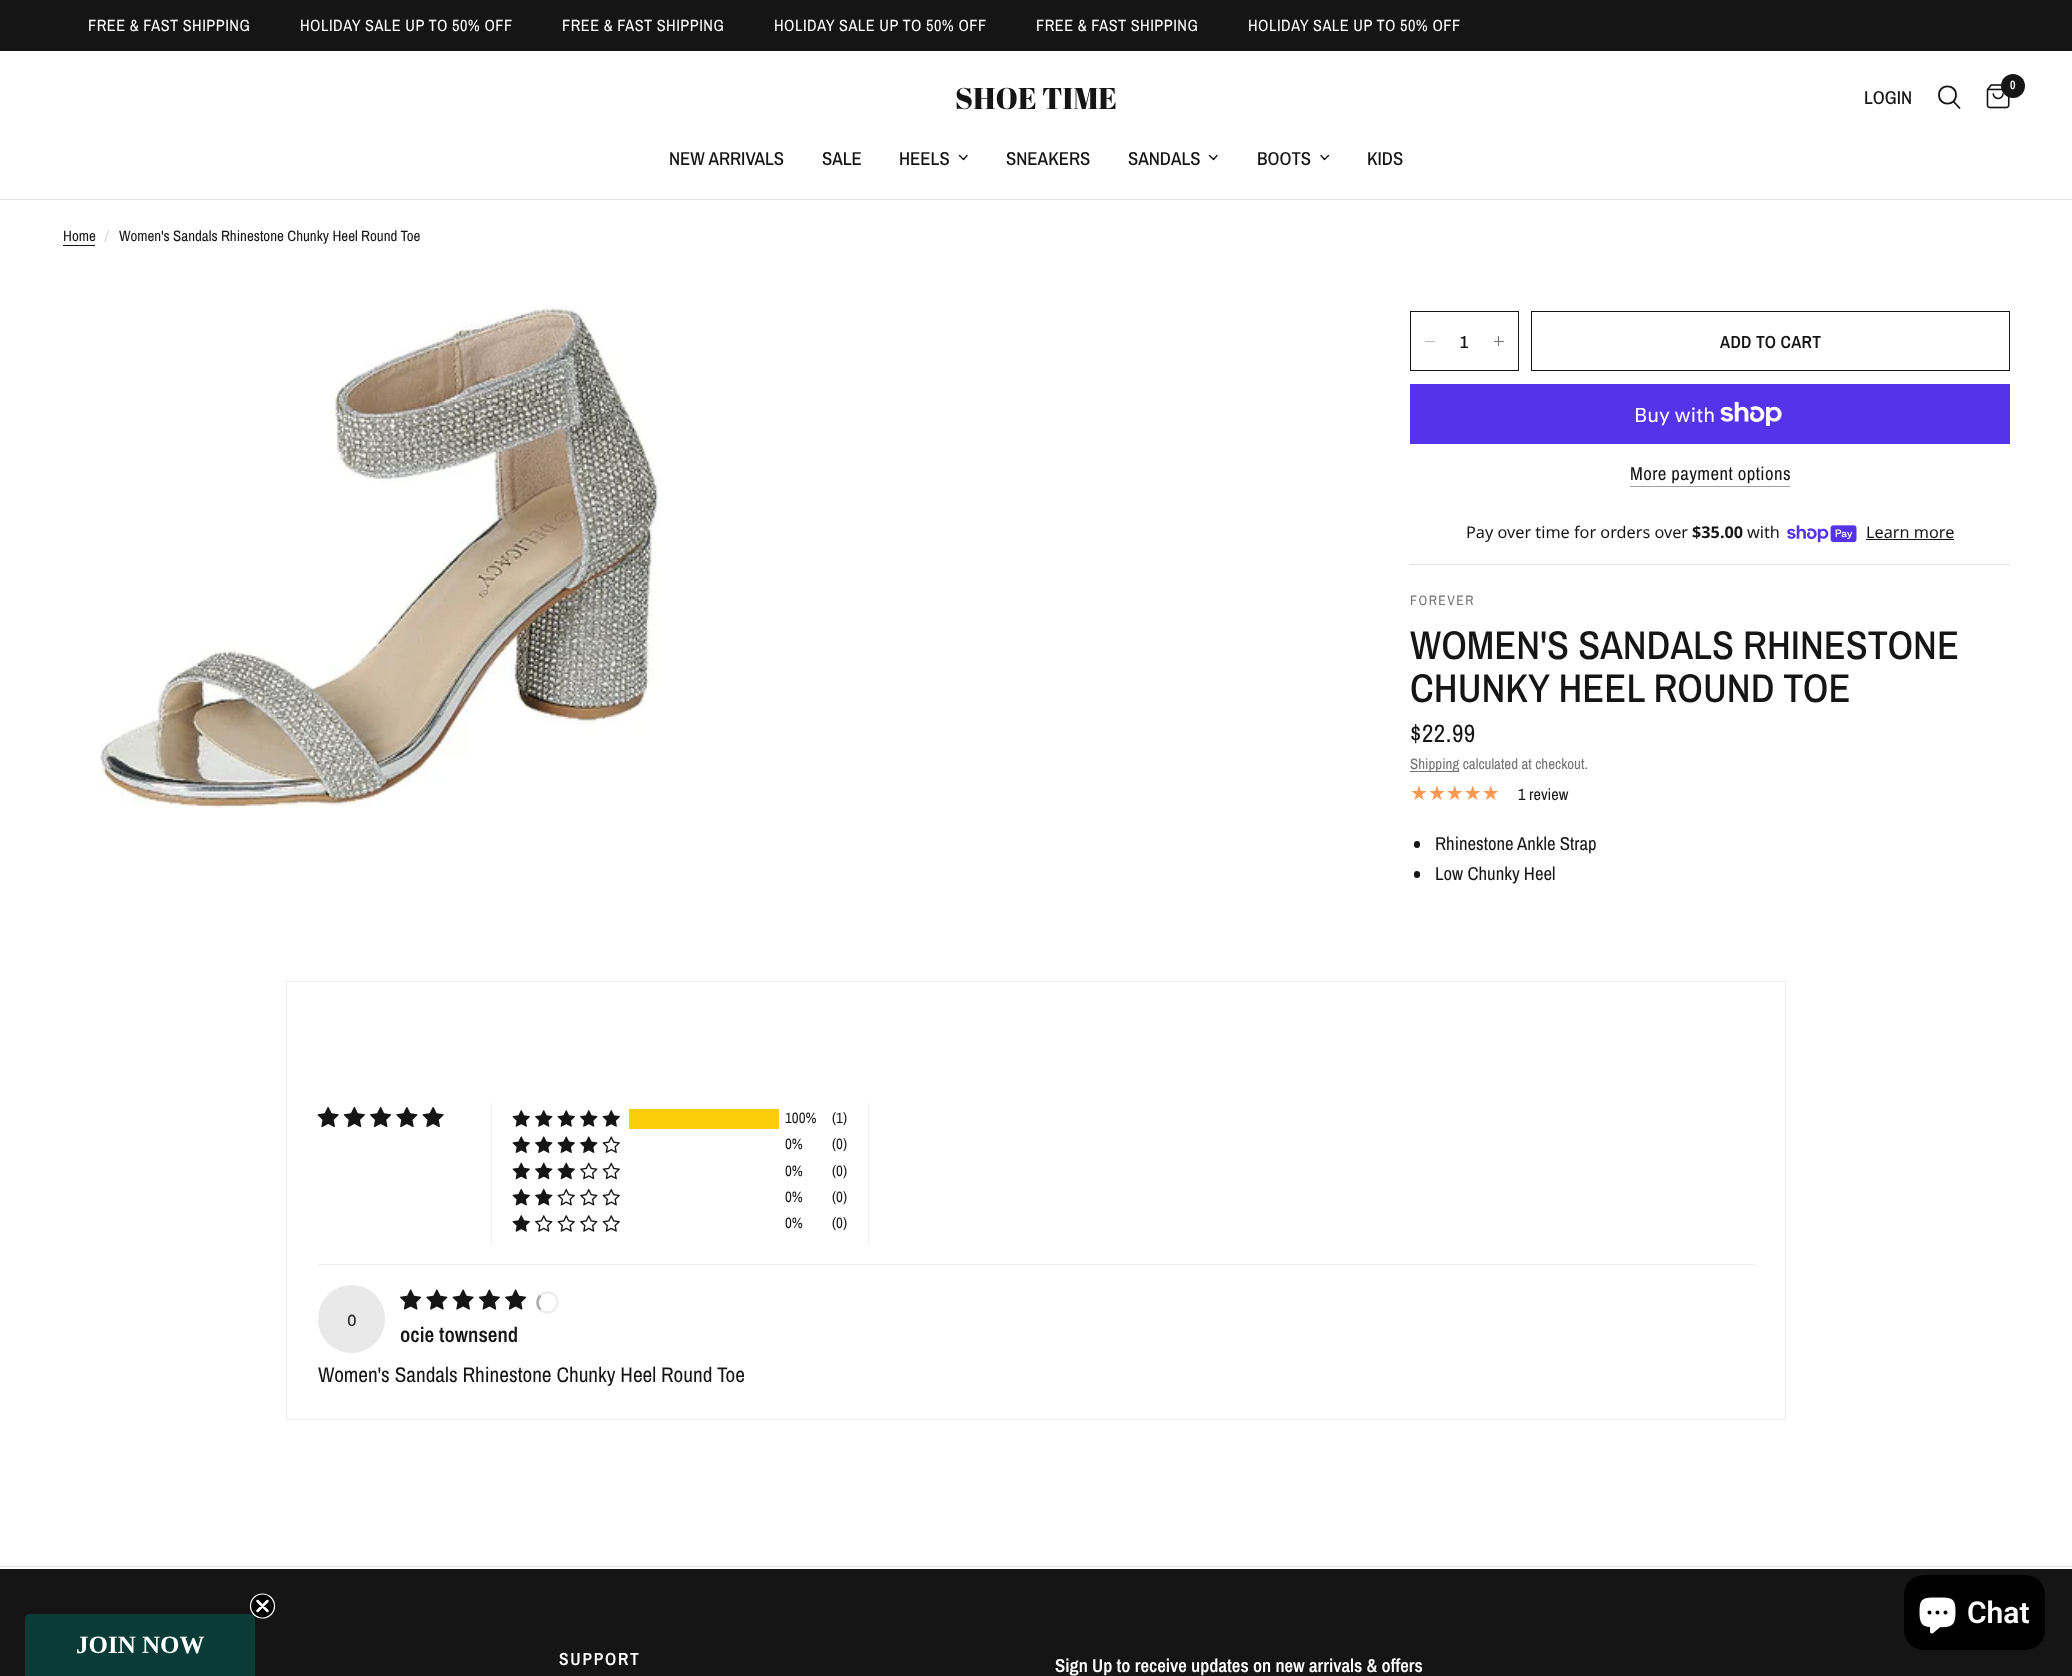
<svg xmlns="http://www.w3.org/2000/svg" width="2072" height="1676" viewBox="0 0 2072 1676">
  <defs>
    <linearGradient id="g1" gradientUnits="userSpaceOnUse" x1="1410" y1="793" x2="1500" y2="793"><stop offset="1" stop-color="#fd9a52"/><stop offset="1" stop-color="#e1e1e1"/></linearGradient>
  </defs>
  <rect width="100%" height="100%" fill="#ffffff"/>
  <rect x="0" y="0" width="2072" height="51" fill="#151515"/>
  <text x="88" y="31" font-family="Archivo Narrow" font-size="16.25" letter-spacing="0.5" fill="#ffffff">FREE &amp; FAST SHIPPING</text>
  <text x="300" y="31" font-family="Archivo Narrow" font-size="16.25" letter-spacing="0.5" fill="#ffffff">HOLIDAY SALE UP TO 50% OFF</text>
  <text x="562" y="31" font-family="Archivo Narrow" font-size="16.25" letter-spacing="0.5" fill="#ffffff">FREE &amp; FAST SHIPPING</text>
  <text x="774" y="31" font-family="Archivo Narrow" font-size="16.25" letter-spacing="0.5" fill="#ffffff">HOLIDAY SALE UP TO 50% OFF</text>
  <text x="1036" y="31" font-family="Archivo Narrow" font-size="16.25" letter-spacing="0.5" fill="#ffffff">FREE &amp; FAST SHIPPING</text>
  <text x="1248" y="31" font-family="Archivo Narrow" font-size="16.25" letter-spacing="0.5" fill="#ffffff">HOLIDAY SALE UP TO 50% OFF</text>
  <rect x="0" y="199" width="2072" height="1" fill="#e2e2e2"/>
  <text x="955" y="109" font-family="Abril Fatface" font-size="30" fill="#151515">SHOE TIME</text>
  <text x="1864" y="104" font-family="Archivo Narrow" font-size="18.75" font-weight="500" fill="#151515">LOGIN</text>
  <path d="M1954 102L1959.5 108M1956 95C1956 106.5 1939 106.5 1939 95C1939 83.5 1956 83.5 1956 95Z" fill="none" stroke="#151515" stroke-width="1.8" stroke-linecap="round" stroke-linejoin="round"/>
  <image x="1986" y="84" width="24" height="25" href="img1.png"/>
  <circle cx="2013" cy="86" r="12" fill="#151515"/>
  <text x="2010" y="89" font-family="Archivo Narrow" font-size="12" font-weight="600" fill="#ffffff">0</text>
  <text x="669" y="165" font-family="Archivo Narrow" font-size="18.75" font-weight="500" fill="#151515">NEW ARRIVALS</text>
  <text x="822" y="165" font-family="Archivo Narrow" font-size="18.75" font-weight="500" fill="#151515">SALE</text>
  <text x="899" y="165" font-family="Archivo Narrow" font-size="18.75" font-weight="500" fill="#151515">HEELS</text>
  <path d="M967 155.5L963.5 159.5L959.5 155.5" fill="none" stroke="#151515" stroke-width="1.4" stroke-linecap="round" stroke-linejoin="round"/>
  <text x="1006" y="165" font-family="Archivo Narrow" font-size="18.75" font-weight="500" fill="#151515">SNEAKERS</text>
  <text x="1128" y="165" font-family="Archivo Narrow" font-size="18.75" font-weight="500" fill="#151515">SANDALS</text>
  <path d="M1217 155.5L1213.5 159.5L1209.5 155.5" fill="none" stroke="#151515" stroke-width="1.4" stroke-linecap="round" stroke-linejoin="round"/>
  <text x="1257" y="165" font-family="Archivo Narrow" font-size="18.75" font-weight="500" fill="#151515">BOOTS</text>
  <path d="M1328.5 155.5L1324.5 159.5L1321 155.5" fill="none" stroke="#151515" stroke-width="1.4" stroke-linecap="round" stroke-linejoin="round"/>
  <text x="1367" y="165" font-family="Archivo Narrow" font-size="18.75" font-weight="500" fill="#151515">KIDS</text>
  <text x="63" y="241" font-family="Archivo Narrow" font-size="15" fill="#151515">Home</text>
  <rect x="63" y="245" width="32" height="1" fill="#151515"/>
  <text x="105" y="241" font-family="Archivo Narrow" font-size="15" font-style="italic" fill="#d0d0d0">/</text>
  <text x="119" y="241" font-family="Archivo Narrow" font-size="15" fill="#151515">Women's Sandals Rhinestone Chunky Heel Round Toe</text>
  <image x="100" y="306" width="560" height="502" href="img2.png"/>
  <rect x="1410.5" y="311.5" width="108" height="59" fill="none" stroke="#151515"/>
  <rect x="1425" y="341" width="10" height="1" fill="#b9b9b9"/>
  <text x="1460" y="348" font-family="Archivo Narrow" font-size="17.5" font-weight="600" fill="#151515">1</text>
  <rect x="1498" y="336" width="1" height="10" fill="#737373"/>
  <rect x="1494" y="341" width="10" height="1" fill="#737373"/>
  <rect x="1531.5" y="311.5" width="478" height="59" fill="none" stroke="#151515"/>
  <text x="1720" y="348" font-family="Archivo Narrow" font-size="17.5" font-weight="600" letter-spacing="0.3" fill="#151515">ADD TO CART</text>
  <rect x="1410" y="384" width="600" height="60" fill="#5433eb"/>
  <text x="1634" y="422" font-family="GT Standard" font-size="20" fill="#ffffff">Buy with</text>
  <image x="1720" y="401" width="62" height="25" href="img3.png"/>
  <text x="1630" y="480" font-family="Archivo Narrow" font-size="18.75" letter-spacing="0.4" fill="#151515">More payment options</text>
  <rect x="1630" y="486" width="160" height="1" fill="#a1a1a1"/>
  <rect x="1410" y="564" width="600" height="1" fill="#e2e2e2"/>
  <text x="1466" y="538" font-family="Noto Sans" font-size="16.25" fill="#151515">Pay over time for orders over</text>
  <text x="1692" y="538" font-family="Noto Sans" font-size="16.25" font-weight="bold" fill="#151515">$35.00</text>
  <text x="1747" y="538" font-family="Noto Sans" font-size="16.25" fill="#151515">with</text>
  <image x="1787" y="525" width="70" height="18" href="img4.png"/>
  <text x="1866" y="538" font-family="Noto Sans" font-size="16.25" fill="#151515">Learn more</text>
  <rect x="1866" y="539" width="88" height="1" fill="#151515"/>
  <text x="1410" y="605" font-family="Archivo Narrow" font-size="13.75" letter-spacing="1.5" fill="#737373">FOREVER</text>
  <text x="1410" y="659" font-family="Archivo Narrow" font-size="40.25" font-weight="500" fill="#151515">WOMEN'S SANDALS RHINESTONE</text>
  <text x="1410" y="702" font-family="Archivo Narrow" font-size="40.25" font-weight="500" fill="#151515">CHUNKY HEEL ROUND TOE</text>
  <text x="1410" y="742" font-family="Archivo Narrow" font-size="25" letter-spacing="0.5" fill="#151515">$22.99</text>
  <rect x="1410" y="771" width="49" height="1" fill="#737373"/>
  <text x="1410" y="769" font-family="Archivo Narrow" font-size="15" fill="#737373">Shipping calculated at checkout.</text>
  <text x="1410" y="800" font-family="DejaVu Sans" font-size="20" fill="url(#g1)">★★★★★</text>
  <text x="1518" y="800" font-family="Archivo Narrow" font-size="16.25" fill="#151515">1 review</text>
  <rect x="1414" y="841" width="6" height="7" rx="3" fill="#151515"/>
  <text x="1435" y="850" font-family="Archivo Narrow" font-size="18.75" fill="#151515">Rhinestone Ankle Strap</text>
  <rect x="1414" y="871" width="6" height="7" rx="3" fill="#151515"/>
  <text x="1435" y="880" font-family="Archivo Narrow" font-size="18.75" fill="#151515">Low Chunky Heel</text>
  <rect x="286.5" y="981.5" width="1499" height="438" fill="none" stroke="#eeeeee"/>
  <image x="317" y="1107" width="22" height="21" href="img5.png"/>
  <image x="343" y="1106" width="22" height="22" href="img6.png"/>
  <image x="370" y="1106" width="22" height="22" href="img7.png"/>
  <image x="396" y="1107" width="22" height="21" href="img8.png"/>
  <image x="422" y="1107" width="22" height="21" href="img5.png"/>
  <rect x="868" y="1103" width="1" height="141" fill="#eeeeee"/>
  <rect x="491" y="1103" width="1" height="141" fill="#eeeeee"/>
  <image x="512" y="1110" width="18" height="17" href="img9.png"/>
  <image x="535" y="1110" width="18" height="17" href="img10.png"/>
  <image x="557" y="1110" width="18" height="17" href="img9.png"/>
  <image x="580" y="1110" width="18" height="17" href="img10.png"/>
  <image x="602" y="1110" width="18" height="17" href="img9.png"/>
  <rect x="629" y="1109" width="150" height="20" fill="#fbcd0a"/>
  <text x="785" y="1123" font-family="Archivo Narrow" font-size="15" fill="#151515">100%</text>
  <text x="832" y="1123" font-family="Archivo Narrow" font-size="15" fill="#151515">(1)</text>
  <image x="512" y="1136" width="18" height="17" href="img11.png"/>
  <image x="535" y="1136" width="18" height="17" href="img12.png"/>
  <image x="557" y="1136" width="18" height="17" href="img11.png"/>
  <image x="580" y="1136" width="18" height="17" href="img12.png"/>
  <image x="602" y="1136" width="18" height="17" href="img13.png"/>
  <text x="785" y="1149" font-family="Archivo Narrow" font-size="15" fill="#151515">0%</text>
  <text x="832" y="1149" font-family="Archivo Narrow" font-size="15" fill="#151515">(0)</text>
  <image x="512" y="1162" width="18" height="18" href="img14.png"/>
  <image x="535" y="1162" width="18" height="18" href="img15.png"/>
  <image x="557" y="1162" width="18" height="18" href="img14.png"/>
  <image x="580" y="1162" width="18" height="18" href="img16.png"/>
  <image x="602" y="1162" width="18" height="18" href="img17.png"/>
  <text x="785" y="1176" font-family="Archivo Narrow" font-size="15" fill="#151515">0%</text>
  <text x="832" y="1176" font-family="Archivo Narrow" font-size="15" fill="#151515">(0)</text>
  <image x="512" y="1188" width="18" height="18" href="img18.png"/>
  <image x="535" y="1188" width="18" height="18" href="img19.png"/>
  <image x="557" y="1188" width="18" height="18" href="img20.png"/>
  <image x="580" y="1188" width="18" height="18" href="img21.png"/>
  <image x="602" y="1188" width="18" height="18" href="img20.png"/>
  <text x="785" y="1202" font-family="Archivo Narrow" font-size="15" fill="#151515">0%</text>
  <text x="832" y="1202" font-family="Archivo Narrow" font-size="15" fill="#151515">(0)</text>
  <image x="512" y="1215" width="18" height="17" href="img9.png"/>
  <image x="535" y="1215" width="18" height="17" href="img22.png"/>
  <image x="557" y="1215" width="18" height="17" href="img23.png"/>
  <image x="580" y="1215" width="18" height="17" href="img22.png"/>
  <image x="602" y="1215" width="18" height="17" href="img23.png"/>
  <text x="785" y="1228" font-family="Archivo Narrow" font-size="15" fill="#151515">0%</text>
  <text x="832" y="1228" font-family="Archivo Narrow" font-size="15" fill="#151515">(0)</text>
  <rect x="318" y="1264" width="1437" height="1" fill="#eeeeee"/>
  <image x="400" y="1289" width="22" height="21" href="img24.png"/>
  <image x="426" y="1289" width="22" height="21" href="img25.png"/>
  <image x="452" y="1289" width="22" height="21" href="img26.png"/>
  <image x="478" y="1289" width="22" height="21" href="img27.png"/>
  <image x="505" y="1289" width="22" height="21" href="img24.png"/>
  <path d="M540.5 1295.5C543 1293 546 1292 549.5 1292.5C561 1295 559.5 1312.5 547.5 1312.5C545 1312.5 542.5 1311.5 540.5 1309.5" fill="none" stroke="#eeeeee" stroke-width="2.5"/>
  <path d="M540.5 1309.5C536.5 1305.5 536.5 1299.5 540.5 1295.5" fill="none" stroke="#aaaaaa" stroke-width="2.5"/>
  <rect x="318" y="1285" width="67" height="68" rx="33.5" fill="#e9e9e9"/>
  <text x="347" y="1326" font-family="Archivo Narrow" font-size="21.25" fill="#333333">o</text>
  <text x="400" y="1342" font-family="Archivo Narrow" font-size="21.25" font-weight="600" fill="#151515">ocie townsend</text>
  <text x="318" y="1382" font-family="Archivo Narrow" font-size="21.25" fill="#151515">Women's Sandals Rhinestone Chunky Heel Round Toe</text>
  <rect x="0" y="1566" width="2072" height="1" fill="#e2e2e2"/>
  <rect x="0" y="1569" width="2072" height="107" fill="#151515"/>
  <text x="559" y="1665" font-family="Archivo Narrow" font-size="17.5" font-weight="600" letter-spacing="1.75" fill="#ffffff">SUPPORT</text>
  <text x="1055" y="1672" font-family="Archivo Narrow" font-size="18.75" font-weight="600" fill="#ffffff">Sign Up to receive updates on new arrivals &amp; offers</text>
  <rect x="1904" y="1575" width="141" height="75" rx="20" fill="#000000"/>
  <image x="1919" y="1597" width="37" height="37" href="img28.png"/>
  <text x="1967" y="1623" font-family="Roboto" font-size="30" font-weight="600" fill="#ffffff">Chat</text>
  <path d="M30 1614H250C253 1614 255 1616 255 1619V1676H25V1619C25 1616 27 1614 30 1614Z" fill="#093c37"/>
  <circle cx="262.5" cy="1606" r="12" fill="#000000" stroke="#ffffff" stroke-width="1.2"/>
  <path d="M257.5 1601L267.5 1611M257.5 1611L267.5 1601Z" fill="none" stroke="#ffffff" stroke-width="2.5" stroke-linecap="round" stroke-linejoin="round"/>
  <text x="76" y="1653" font-family="Liberation Serif" font-size="25" font-weight="bold" fill="#ffffff">JOIN NOW</text>
</svg>
